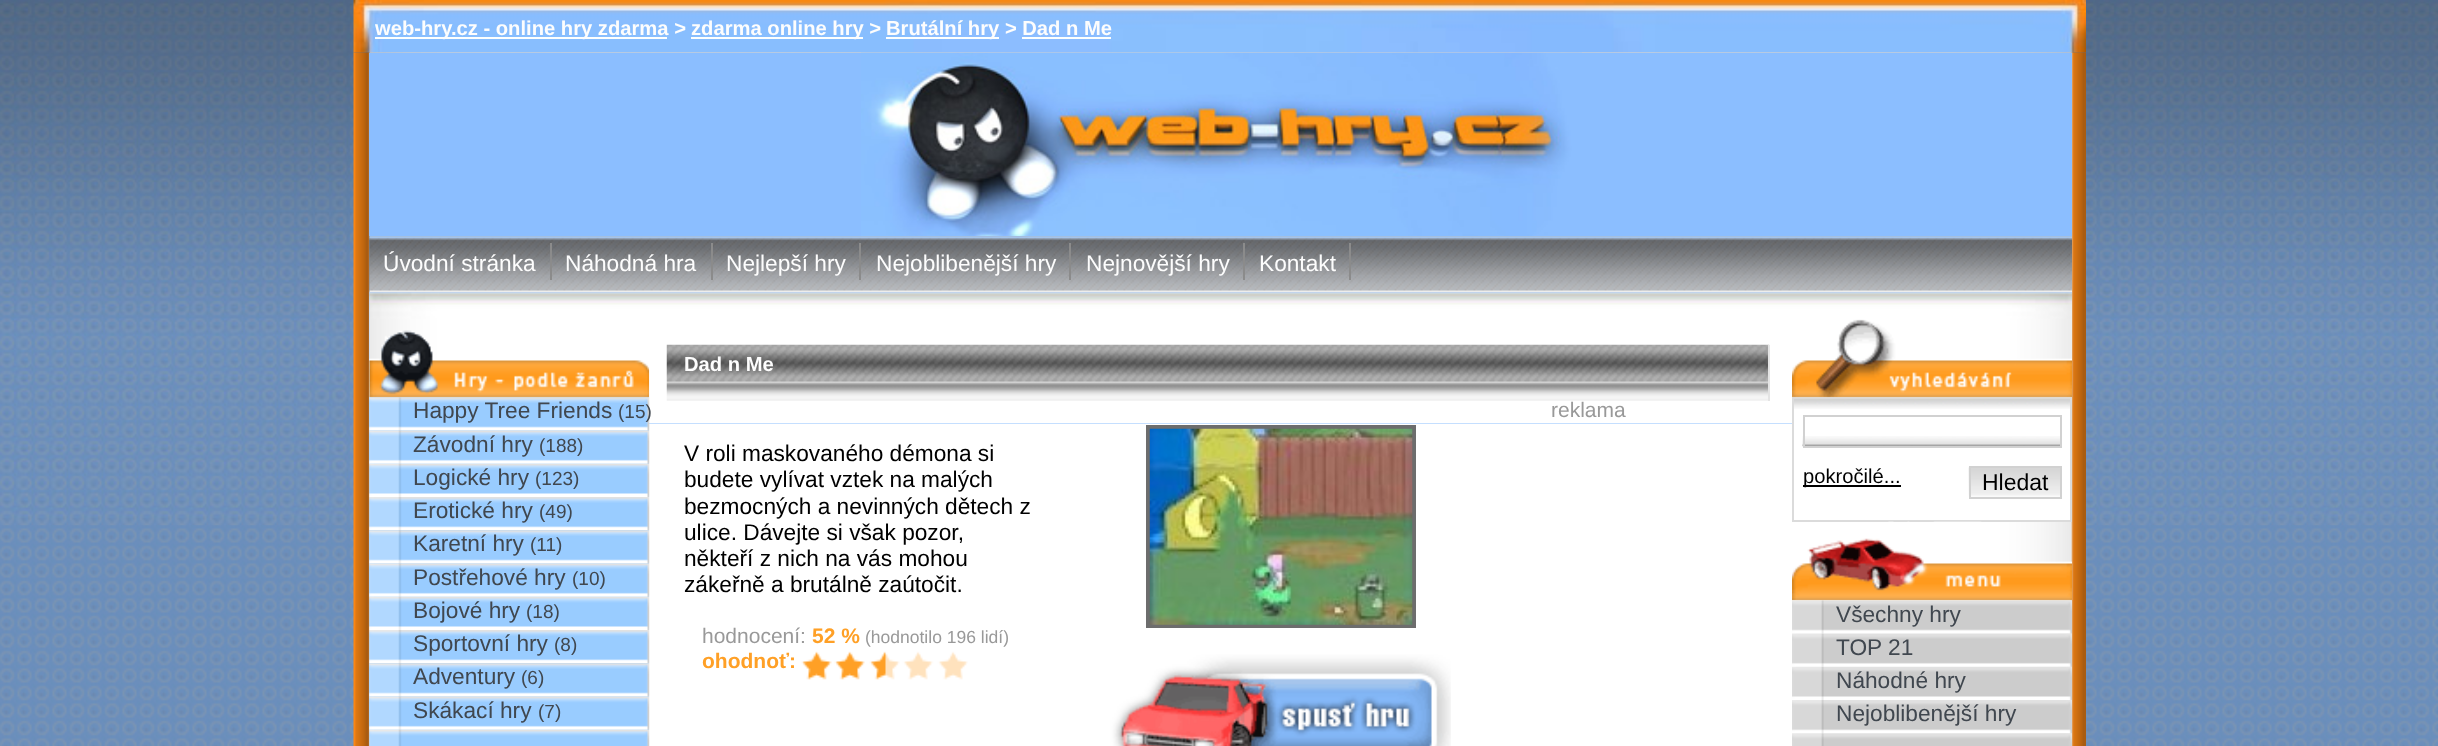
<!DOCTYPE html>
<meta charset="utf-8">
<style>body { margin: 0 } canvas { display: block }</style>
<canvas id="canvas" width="2438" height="746"></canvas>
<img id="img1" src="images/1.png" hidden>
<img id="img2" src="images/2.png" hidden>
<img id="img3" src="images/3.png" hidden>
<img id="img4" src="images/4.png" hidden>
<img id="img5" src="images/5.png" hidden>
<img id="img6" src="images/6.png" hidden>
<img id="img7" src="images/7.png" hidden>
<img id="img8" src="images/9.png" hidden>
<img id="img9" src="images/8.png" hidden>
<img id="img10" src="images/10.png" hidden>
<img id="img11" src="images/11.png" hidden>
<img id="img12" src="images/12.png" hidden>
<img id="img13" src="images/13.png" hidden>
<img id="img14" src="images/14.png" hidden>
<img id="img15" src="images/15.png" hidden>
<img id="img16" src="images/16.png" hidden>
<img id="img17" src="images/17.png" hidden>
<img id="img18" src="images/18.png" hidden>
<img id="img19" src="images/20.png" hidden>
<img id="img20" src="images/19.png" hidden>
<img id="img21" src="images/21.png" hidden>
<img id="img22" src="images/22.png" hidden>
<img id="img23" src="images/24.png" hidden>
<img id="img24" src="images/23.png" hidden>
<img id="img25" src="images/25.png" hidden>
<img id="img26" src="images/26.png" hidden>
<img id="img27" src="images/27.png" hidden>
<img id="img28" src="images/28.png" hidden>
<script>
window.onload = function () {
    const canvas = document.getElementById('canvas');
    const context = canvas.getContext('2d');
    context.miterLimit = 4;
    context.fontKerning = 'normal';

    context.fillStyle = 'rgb(255, 255, 255)';
    context.fillRect(0, 0, 2438, 746);
    context.drawImage(document.getElementById('img1'), 0, 525, 2438, 221);
    context.drawImage(document.getElementById('img2'), 0, 0, 2438, 525);
    context.drawImage(document.getElementById('img3'), 353, 0, 1733, 53);
    context.fillStyle = 'rgb(253, 255, 254)';
    context.fillRect(375, 37, 292, 2);
    context.fillRect(691, 37, 172, 2);
    context.fillRect(886, 37, 113, 2);
    context.drawImage(document.getElementById('img4'), 353, 52, 1733, 694);
    context.fillStyle = 'rgb(139, 190, 255)';
    context.fillRect(369, 53, 1703, 371);
    context.drawImage(document.getElementById('img5'), 369, 292, 1703, 132);
    context.drawImage(document.getElementById('img6'), 861, 52, 721, 184);
    context.fillStyle = 'rgb(134, 136, 140)';
    context.fillRect(369, 236, 1703, 56);
    context.drawImage(document.getElementById('img7'), 369, 236, 1703, 57);
    context.fillStyle = 'rgb(139, 139, 139)';
    context.fillRect(550, 243, 2, 37);
    context.fillRect(711, 243, 2, 37);
    context.fillRect(859, 243, 2, 37);
    context.fillRect(1069, 243, 2, 37);
    context.fillRect(1243, 243, 2, 37);
    context.fillRect(1349, 243, 2, 37);
    context.fillStyle = 'rgb(153, 204, 255)';
    context.fillRect(369, 397, 280, 67);
    context.drawImage(document.getElementById('img8'), 369, 397, 281, 34);
    context.drawImage(document.getElementById('img9'), 369, 330, 281, 68);
    context.drawImage(document.getElementById('img10'), 369, 430, 281, 34);
    context.drawImage(document.getElementById('img11'), 369, 463, 281, 34);
    context.drawImage(document.getElementById('img12'), 369, 497, 281, 34);
    context.fillRect(369, 530, 280, 67);
    context.drawImage(document.getElementById('img13'), 369, 530, 281, 34);
    context.drawImage(document.getElementById('img10'), 369, 563, 281, 34);
    context.drawImage(document.getElementById('img11'), 369, 596, 281, 34);
    context.drawImage(document.getElementById('img12'), 369, 630, 281, 34);
    context.fillRect(369, 663, 280, 67);
    context.drawImage(document.getElementById('img13'), 369, 663, 281, 34);
    context.drawImage(document.getElementById('img10'), 369, 696, 281, 34);
    context.drawImage(document.getElementById('img14'), 369, 729, 281, 17);
    context.drawImage(document.getElementById('img15'), 666, 344, 1104, 57);
    context.fillStyle = 'rgb(228, 228, 228)';
    context.fillRect(1768, 345, 2, 56);
    context.drawImage(document.getElementById('img16'), 801, 651, 167, 29);
    context.strokeStyle = 'rgb(109, 109, 109)';
    context.lineWidth = 4;
    context.strokeRect(1148, 427, 266, 199);
    context.drawImage(document.getElementById('img17'), 1149, 428, 264, 197);
    context.drawImage(document.getElementById('img18'), 1104, 654, 347, 92);
    context.fillStyle = 'rgb(255, 255, 255)';
    context.fillRect(1794, 409, 276, 111);
    context.drawImage(document.getElementById('img19'), 1794, 399, 276, 10);
    context.strokeStyle = 'rgb(219, 219, 219)';
    context.lineWidth = 2;
    context.strokeRect(1793, 398, 278, 123);
    context.drawImage(document.getElementById('img20'), 1792, 319, 280, 79);
    context.drawImage(document.getElementById('img21'), 1802, 436, 258, 11);
    context.strokeStyle = 'rgb(209, 209, 209)';
    context.strokeRect(1804, 416, 257, 31);
    context.fillStyle = 'rgb(0, 0, 0)';
    context.fillRect(1803, 485, 98, 2);
    context.drawImage(document.getElementById('img22'), 1968, 466, 92, 31);
    context.strokeRect(1970, 467, 91, 31);
    context.drawImage(document.getElementById('img23'), 1792, 600, 280, 34);
    context.drawImage(document.getElementById('img24'), 1792, 521, 280, 80);
    context.drawImage(document.getElementById('img25'), 1792, 633, 280, 34);
    context.drawImage(document.getElementById('img26'), 1792, 666, 280, 34);
    context.drawImage(document.getElementById('img27'), 1792, 700, 280, 34);
    context.drawImage(document.getElementById('img28'), 1792, 733, 280, 13);
    context.font = 'bold 20.2px Liberation Sans';
    context.fillStyle = 'rgb(253, 253, 253)';
    context.fillText('web-hry.cz - online hry zdarma >', 375, 35);
    context.fillText('zdarma online hry >', 691, 35);
    context.fillText('Brutální hry > Dad n Me', 886, 35);
    context.fillStyle = 'rgb(253, 255, 254)';
    context.fillRect(1022, 37, 89, 2);
    context.font = '22.7px Liberation Sans';
    context.fillStyle = 'rgb(253, 253, 253)';
    context.fillText('Úvodní stránka', 383, 271);
    context.fillText('Náhodná hra', 565, 271);
    context.fillText('Nejlepší hry', 726, 271);
    context.fillText('Nejoblibenější hry', 876, 271);
    context.fillText('Nejnovější hry', 1086, 271);
    context.fillText('Kontakt', 1259, 271);
    context.fillStyle = 'rgb(64, 71, 79)';
    context.fillText('Happy Tree Friends', 413, 418);
    context.font = '19px Liberation Sans';
    context.fillText('(15)', 618, 418);
    context.font = '22.7px Liberation Sans';
    context.fillText('Závodní hry', 413, 452);
    context.font = '19px Liberation Sans';
    context.fillText('(188)', 539, 452);
    context.font = '22.7px Liberation Sans';
    context.fillText('Logické hry', 413, 485);
    context.font = '19px Liberation Sans';
    context.fillText('(123)', 535, 485);
    context.font = '22.7px Liberation Sans';
    context.fillText('Erotické hry', 413, 518);
    context.font = '19px Liberation Sans';
    context.fillText('(49)', 539, 518);
    context.font = '22.7px Liberation Sans';
    context.fillText('Karetní hry', 413, 551);
    context.font = '19px Liberation Sans';
    context.fillText('(11)', 530, 551);
    context.font = '22.7px Liberation Sans';
    context.fillText('Postřehové hry', 413, 585);
    context.font = '19px Liberation Sans';
    context.fillText('(10)', 572, 585);
    context.font = '22.7px Liberation Sans';
    context.fillText('Bojové hry', 413, 618);
    context.font = '19px Liberation Sans';
    context.fillText('(18)', 526, 618);
    context.font = '22.7px Liberation Sans';
    context.fillText('Sportovní hry', 413, 651);
    context.font = '19px Liberation Sans';
    context.fillText('(8)', 554, 651);
    context.font = '22.7px Liberation Sans';
    context.fillText('Adventury', 413, 684);
    context.font = '19px Liberation Sans';
    context.fillText('(6)', 521, 684);
    context.font = '22.7px Liberation Sans';
    context.fillText('Skákací hry', 413, 718);
    context.font = '19px Liberation Sans';
    context.fillText('(7)', 538, 718);
    context.font = 'bold 20.2px Liberation Sans';
    context.fillStyle = 'rgb(253, 253, 253)';
    context.fillText('Dad n Me', 684, 371);
    context.font = '21px Liberation Sans';
    context.fillStyle = 'rgb(153, 153, 153)';
    context.fillText('reklama', 1551, 417);
    context.font = '22.7px Liberation Sans';
    context.fillStyle = 'rgb(0, 0, 0)';
    context.fillText('V roli maskovaného démona si', 684, 461);
    context.fillText('budete vylívat vztek na malých', 684, 487);
    context.fillText('bezmocných a nevinných dětech z', 684, 514);
    context.fillText('ulice. Dávejte si však pozor,', 684, 540);
    context.fillText('někteří z nich na vás mohou', 684, 566);
    context.fillText('zákeřně a brutálně zaútočit.', 684, 592);
    context.font = '21px Liberation Sans';
    context.fillStyle = 'rgb(153, 153, 153)';
    context.fillText('hodnocení:', 702, 643);
    context.font = 'bold 21px Liberation Sans';
    context.fillStyle = 'rgb(255, 160, 38)';
    context.fillText('52 %', 812, 643);
    context.font = '17.5px Liberation Sans';
    context.fillStyle = 'rgb(153, 153, 153)';
    context.fillText('(hodnotilo 196 lidí)', 865, 643);
    context.font = 'bold 21px Liberation Sans';
    context.fillStyle = 'rgb(255, 160, 38)';
    context.fillText('ohodnoť:', 702, 668);
    context.font = '20.2px Liberation Sans';
    context.fillStyle = 'rgb(0, 0, 0)';
    context.fillText('pokročilé...', 1803, 483);
    context.font = '23px Liberation Sans';
    context.fillText('Hledat', 1982, 490);
    context.font = '22.7px Liberation Sans';
    context.fillStyle = 'rgb(64, 71, 79)';
    context.fillText('Všechny hry', 1836, 622);
    context.fillText('TOP 21', 1836, 655);
    context.fillText('Náhodné hry', 1836, 688);
    context.fillText('Nejoblibenější hry', 1836, 721);
};
</script>
